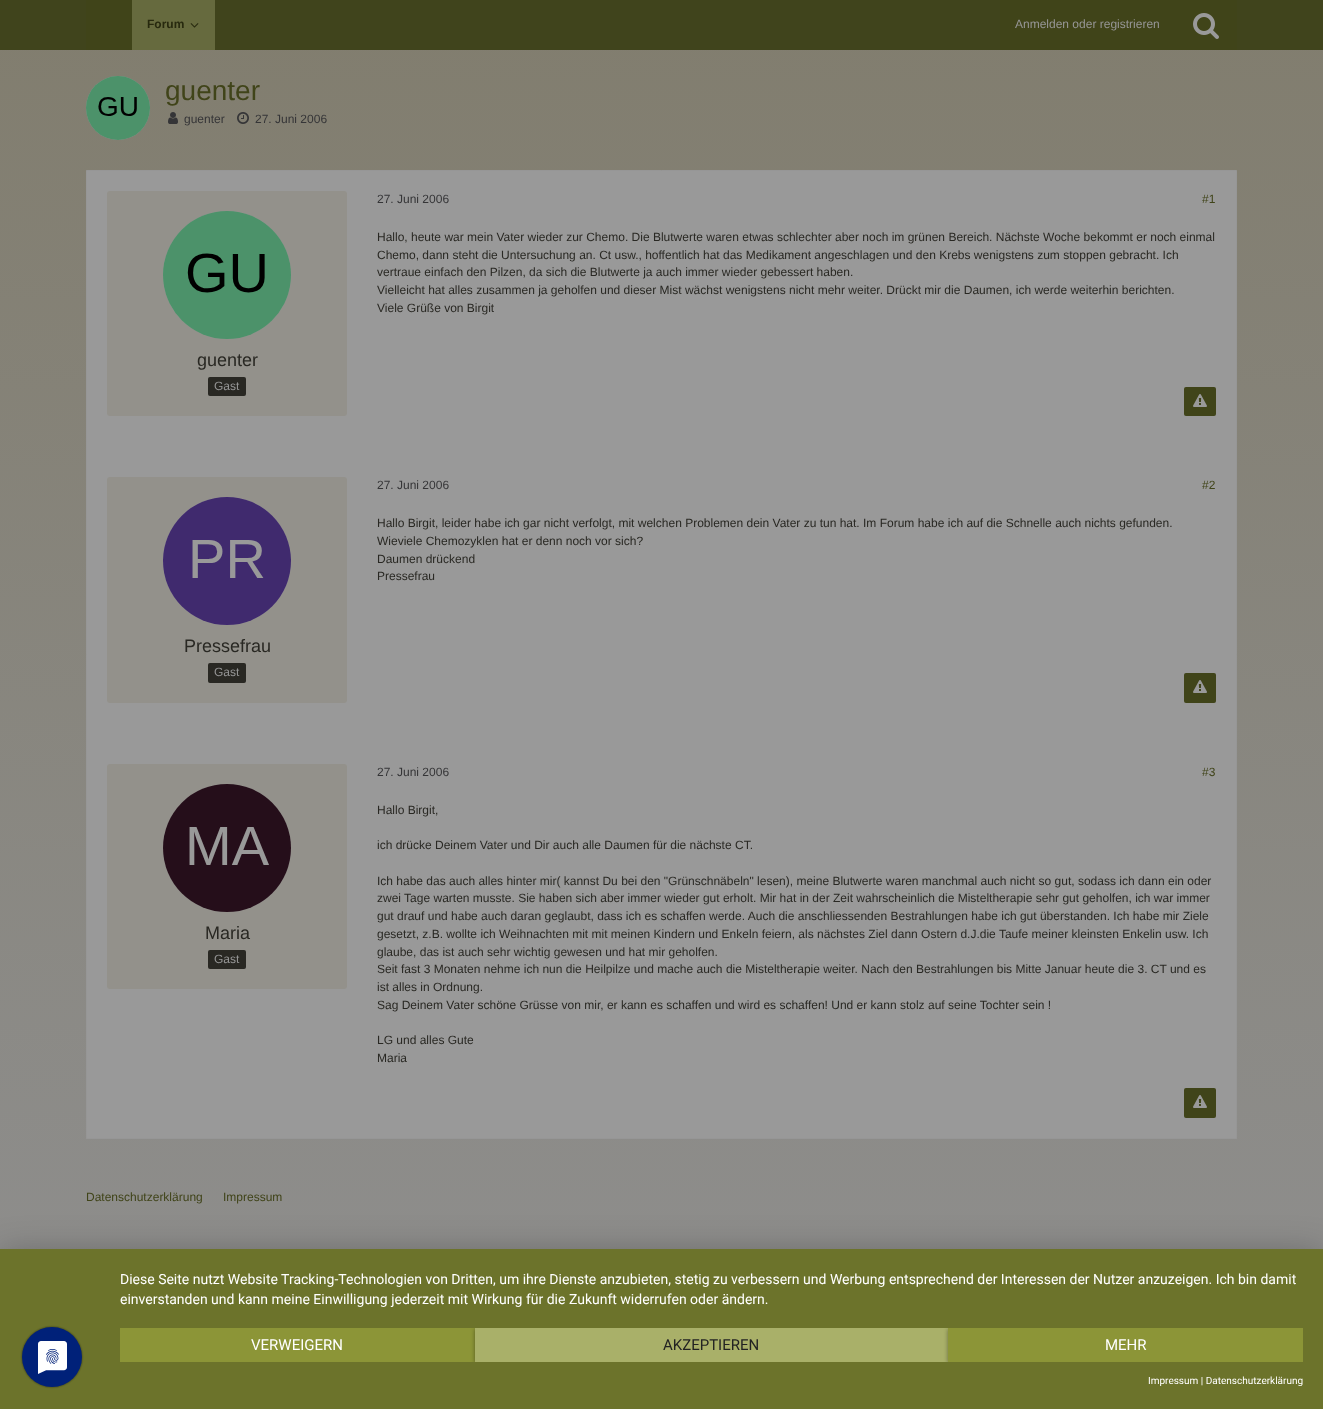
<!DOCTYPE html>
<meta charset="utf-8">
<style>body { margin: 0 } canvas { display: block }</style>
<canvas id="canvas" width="1323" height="1409"></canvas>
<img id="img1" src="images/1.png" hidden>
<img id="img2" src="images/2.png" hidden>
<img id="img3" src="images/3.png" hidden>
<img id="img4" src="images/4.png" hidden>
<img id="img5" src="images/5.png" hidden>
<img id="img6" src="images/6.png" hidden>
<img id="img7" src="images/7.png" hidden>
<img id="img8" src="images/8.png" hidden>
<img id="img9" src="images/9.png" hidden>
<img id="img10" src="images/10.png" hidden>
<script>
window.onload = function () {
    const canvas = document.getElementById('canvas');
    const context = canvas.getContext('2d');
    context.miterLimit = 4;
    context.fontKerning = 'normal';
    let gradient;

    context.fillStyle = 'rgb(255, 255, 255)';
    context.fillRect(0, 0, 1323, 1409);
    gradient = context.createLinearGradient(661, 0, 662, 1409);
    gradient.addColorStop(0, 'rgb(129, 125, 110)');
    gradient.addColorStop(1, 'rgb(143, 143, 143)');
    context.fillStyle = gradient;
    context.fillRect(0, 50, 1323, 1199);
    context.fillStyle = 'rgb(64, 68, 28)';
    context.fillRect(0, 0, 1323, 50);
    context.fillStyle = 'rgb(64, 68, 25)';
    context.fillRect(86, 0, 46, 50);
    context.fillStyle = 'rgb(102, 106, 62)';
    context.fillRect(132, 0, 83, 50);
    context.drawImage(document.getElementById('img1'), 190, 23, 9, 5);
    context.fillStyle = 'rgb(64, 68, 25)';
    context.fillRect(1000, 0, 237, 50);
    context.drawImage(document.getElementById('img2'), 1193, 13, 26, 26);
    context.fillStyle = 'rgb(153, 153, 153)';
    context.beginPath();
    context.arc(118, 108, 32, 0, 2 * Math.PI);
    context.fill();
    context.drawImage(document.getElementById('img3'), 86, 76, 64, 64);
    context.drawImage(document.getElementById('img4'), 168, 112, 10, 12);
    context.drawImage(document.getElementById('img5'), 237, 112, 12, 12);
    context.beginPath();
    context.rect(86.5, 170.5, 1150, 968);
    context.fill();
    context.strokeStyle = 'rgb(150, 150, 150)';
    context.stroke();
    context.fillStyle = 'rgb(64, 68, 25)';
    context.beginPath();
    context.roundRect(1184, 387, 32, 29, 2);
    context.fill();
    context.drawImage(document.getElementById('img6'), 1193, 394, 14, 13);
    context.fillStyle = 'rgb(147, 145, 139)';
    context.beginPath();
    context.roundRect(107, 191, 240, 225, 3);
    context.fill();
    context.fillStyle = 'rgb(153, 153, 153)';
    context.beginPath();
    context.arc(227, 275, 64, 0, 2 * Math.PI);
    context.fill();
    context.drawImage(document.getElementById('img7'), 163, 211, 128, 128);
    context.fillStyle = 'rgb(41, 40, 35)';
    context.beginPath();
    context.roundRect(208, 377, 38, 19, 2);
    context.fill();
    context.fillStyle = 'rgb(64, 68, 25)';
    context.beginPath();
    context.roundRect(1184, 673, 32, 30, 2);
    context.fill();
    context.drawImage(document.getElementById('img6'), 1193, 680, 14, 13);
    context.fillStyle = 'rgb(147, 145, 139)';
    context.beginPath();
    context.roundRect(107, 477, 240, 226, 3);
    context.fill();
    context.fillStyle = 'rgb(153, 153, 153)';
    context.beginPath();
    context.arc(227, 561, 64, 0, 2 * Math.PI);
    context.fill();
    context.drawImage(document.getElementById('img8'), 163, 497, 128, 128);
    context.fillStyle = 'rgb(41, 40, 35)';
    context.beginPath();
    context.roundRect(208, 663, 38, 20, 2);
    context.fill();
    context.fillStyle = 'rgb(147, 145, 139)';
    context.beginPath();
    context.roundRect(107, 764, 240, 225, 3);
    context.fill();
    context.fillStyle = 'rgb(153, 153, 153)';
    context.beginPath();
    context.arc(227, 848, 64, 0, 2 * Math.PI);
    context.fill();
    context.drawImage(document.getElementById('img9'), 163, 784, 128, 128);
    context.fillStyle = 'rgb(41, 40, 35)';
    context.beginPath();
    context.roundRect(208, 950, 38, 19, 2);
    context.fill();
    context.fillStyle = 'rgb(64, 68, 25)';
    context.beginPath();
    context.roundRect(1184, 1088, 32, 30, 2);
    context.fill();
    context.drawImage(document.getElementById('img6'), 1193, 1095, 14, 13);
    context.fillStyle = 'rgba(0, 0, 0, 0.3)';
    context.filter = 'blur(18px)';
    context.beginPath();
    context.rect(0, 1255, 1323, 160);
    context.fill();
    context.filter = 'none';
    context.fillStyle = 'rgb(108, 115, 43)';
    context.fillRect(0, 1249, 1323, 160);
    context.drawImage(document.getElementById('img10'), 20, 1325, 64, 64);
    context.fillStyle = 'rgb(140, 149, 55)';
    context.fillRect(120, 1328, 355, 34);
    context.save();
    context.beginPath();
    context.rect(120, 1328, 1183, 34);
    context.clip();
    context.fillStyle = 'rgba(0, 0, 0, 0.4)';
    context.filter = 'blur(2px)';
    context.beginPath();
    context.rect(475, 1329, 473, 34);
    context.fill();
    context.filter = 'none';
    context.restore();
    context.fillStyle = 'rgb(169, 176, 105)';
    context.fillRect(475, 1328, 473, 34);
    context.save();
    context.beginPath();
    context.rect(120, 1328, 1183, 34);
    context.clip();
    context.fillStyle = 'rgba(0, 0, 0, 0.4)';
    context.filter = 'blur(2px)';
    context.beginPath();
    context.rect(948, 1329, 355, 34);
    context.fill();
    context.filter = 'none';
    context.restore();
    context.fillStyle = 'rgb(140, 149, 55)';
    context.fillRect(948, 1328, 355, 34);
    context.font = 'bold 12px Liberation Sans';
    context.fillStyle = 'rgb(39, 41, 14)';
    context.fillText('Forum', 147, 28);
    context.font = '12px Liberation Sans';
    context.fillStyle = 'rgb(150, 150, 150)';
    context.fillText('Anmelden oder registrieren', 1015, 28);
    context.font = '28px Liberation Sans';
    context.fillStyle = 'rgb(64, 68, 25)';
    context.fillText('guenter', 165, 100);
    context.font = '12px Liberation Sans';
    context.fillStyle = 'rgb(53, 53, 55)';
    context.fillText('guenter', 184, 123);
    context.fillText('27. Juni 2006', 255, 123);
    context.fillText('27. Juni 2006', 377, 203);
    context.fillStyle = 'rgb(64, 68, 25)';
    context.fillText('#1', 1202, 203);
    context.fillStyle = 'rgb(41, 40, 35)';
    context.fillText('Hallo, heute war mein Vater wieder zur Chemo. Die Blutwerte waren etwas schlechter aber noch im grünen Bereich. Nächste Woche bekommt er noch einmal', 377, 241);
    context.fillText('Chemo, dann steht die Untersuchung an. Ct usw., hoffentlich hat das Medikament angeschlagen und den Krebs wenigstens zum stoppen gebracht. Ich', 377, 259);
    context.fillText('vertraue einfach den Pilzen, da sich die Blutwerte ja auch immer wieder gebessert haben.', 377, 276);
    context.fillText('Vielleicht hat alles zusammen ja geholfen und dieser Mist wächst wenigstens nicht mehr weiter. Drückt mir die Daumen, ich werde weiterhin berichten.', 377, 294);
    context.fillText('Viele Grüße von Birgit', 377, 312);
    context.font = '18px Liberation Sans';
    context.fillText('guenter', 197, 366);
    context.font = '12px Liberation Sans';
    context.fillStyle = 'rgb(150, 150, 150)';
    context.fillText('Gast', 214, 390);
    context.fillStyle = 'rgb(53, 53, 55)';
    context.fillText('27. Juni 2006', 377, 489);
    context.fillStyle = 'rgb(64, 68, 25)';
    context.fillText('#2', 1202, 489);
    context.fillStyle = 'rgb(41, 40, 35)';
    context.fillText('Hallo Birgit, leider habe ich gar nicht verfolgt, mit welchen Problemen dein Vater zu tun hat. Im Forum habe ich auf die Schnelle auch nichts gefunden.', 377, 527);
    context.fillText('Wieviele Chemozyklen hat er denn noch vor sich?', 377, 545);
    context.fillText('Daumen drückend', 377, 563);
    context.fillText('Pressefrau', 377, 580);
    context.font = '18px Liberation Sans';
    context.fillText('Pressefrau', 184, 652);
    context.font = '12px Liberation Sans';
    context.fillStyle = 'rgb(150, 150, 150)';
    context.fillText('Gast', 214, 676);
    context.font = '18px Liberation Sans';
    context.fillStyle = 'rgb(41, 40, 35)';
    context.fillText('Maria', 205, 939);
    context.font = '12px Liberation Sans';
    context.fillStyle = 'rgb(150, 150, 150)';
    context.fillText('Gast', 214, 963);
    context.fillStyle = 'rgb(53, 53, 55)';
    context.fillText('27. Juni 2006', 377, 776);
    context.fillStyle = 'rgb(64, 68, 25)';
    context.fillText('#3', 1202, 776);
    context.fillStyle = 'rgb(41, 40, 35)';
    context.fillText('Hallo Birgit,', 377, 814);
    context.fillText('ich drücke Deinem Vater und Dir auch alle Daumen für die nächste CT.', 377, 849);
    context.fillText('Ich habe das auch alles hinter mir( kannst Du bei den "Grünschnäbeln" lesen), meine Blutwerte waren manchmal auch nicht so gut, sodass ich dann ein oder', 377, 885);
    context.fillText('zwei Tage warten musste. Sie haben sich aber immer wieder gut erholt. Mir hat in der Zeit wahrscheinlich die Misteltherapie sehr gut geholfen, ich war immer', 377, 902);
    context.fillText('gut drauf und habe auch daran geglaubt, dass ich es schaffen werde. Auch die anschliessenden Bestrahlungen habe ich gut überstanden. Ich habe mir Ziele', 377, 920);
    context.fillText('gesetzt, z.B. wollte ich Weihnachten mit mit meinen Kindern und Enkeln feiern, als nächstes Ziel dann Ostern d.J.die Taufe meiner kleinsten Enkelin usw. Ich', 377, 938);
    context.fillText('glaube, das ist auch sehr wichtig gewesen und hat mir geholfen.', 377, 956);
    context.fillText('Seit fast 3 Monaten nehme ich nun die Heilpilze und mache auch die Misteltherapie weiter. Nach den Bestrahlungen bis Mitte Januar heute die 3. CT und es', 377, 973);
    context.fillText('ist alles in Ordnung.', 377, 991);
    context.fillText('Sag Deinem Vater schöne Grüsse von mir, er kann es schaffen und wird es schaffen! Und er kann stolz auf seine Tochter sein !', 377, 1009);
    context.fillText('LG und alles Gute', 377, 1044);
    context.fillText('Maria', 377, 1062);
    context.fillStyle = 'rgb(64, 68, 25)';
    context.fillText('Datenschutzerklärung', 86, 1201);
    context.fillText('Impressum', 223, 1201);
    context.font = '14px Roboto';
    context.fillStyle = 'rgb(255, 255, 255)';
    context.fillText('Diese Seite nutzt Website Tracking-Technologien von Dritten, um ihre Dienste anzubieten, stetig zu verbessern und Werbung entsprechend der Interessen der Nutzer anzuzeigen. Ich bin damit', 120, 1284);
    context.fillText('einverstanden und kann meine Einwilligung jederzeit mit Wirkung für die Zukunft widerrufen oder ändern.', 120, 1304);
    context.font = '15px Roboto';
    context.fillText('VERWEIGERN', 251, 1350);
    context.fillStyle = 'rgb(34, 34, 34)';
    context.fillText('AKZEPTIEREN', 663, 1350);
    context.fillStyle = 'rgb(255, 255, 255)';
    context.fillText('MEHR', 1105, 1350);
    context.font = '10px Roboto';
    context.fillText('Impressum | Datenschutzerklärung', 1148, 1384);
};
</script>
